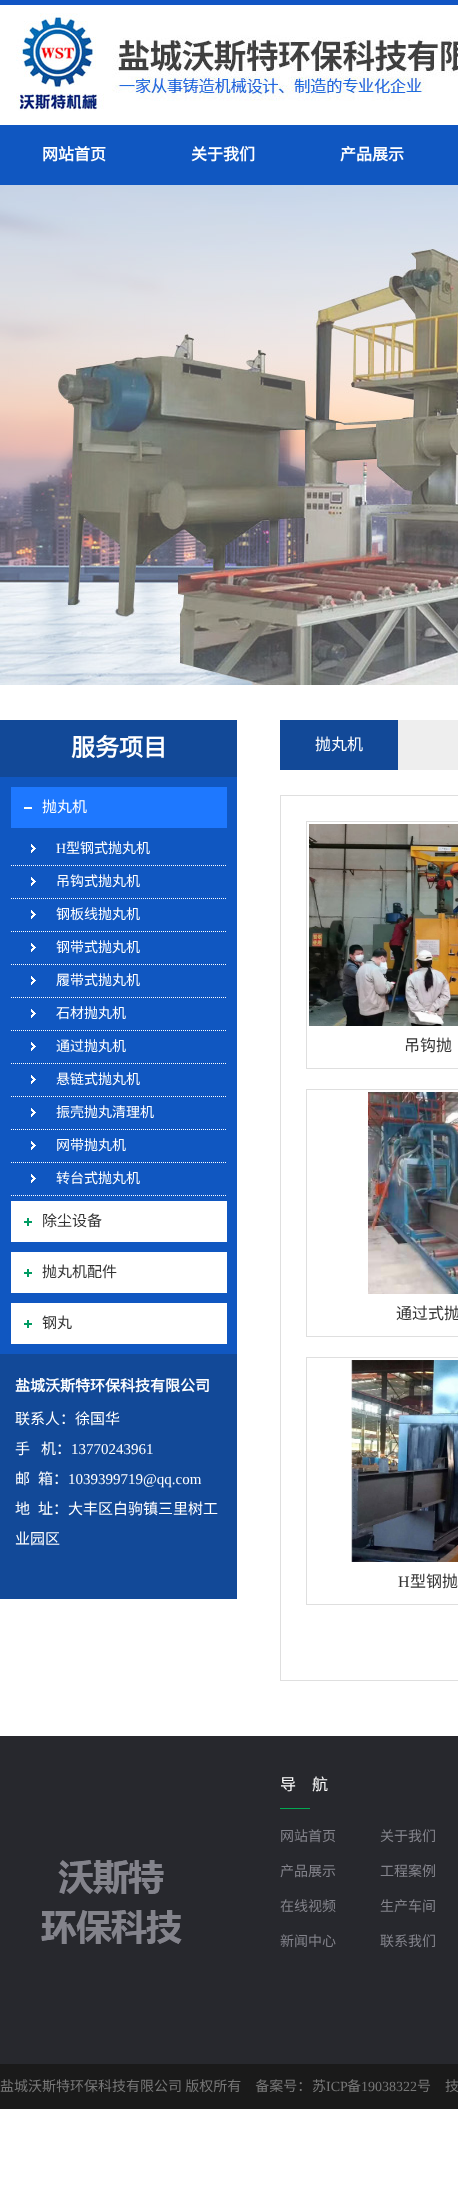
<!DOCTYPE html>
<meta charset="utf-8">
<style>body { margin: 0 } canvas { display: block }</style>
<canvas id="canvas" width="458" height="2206"></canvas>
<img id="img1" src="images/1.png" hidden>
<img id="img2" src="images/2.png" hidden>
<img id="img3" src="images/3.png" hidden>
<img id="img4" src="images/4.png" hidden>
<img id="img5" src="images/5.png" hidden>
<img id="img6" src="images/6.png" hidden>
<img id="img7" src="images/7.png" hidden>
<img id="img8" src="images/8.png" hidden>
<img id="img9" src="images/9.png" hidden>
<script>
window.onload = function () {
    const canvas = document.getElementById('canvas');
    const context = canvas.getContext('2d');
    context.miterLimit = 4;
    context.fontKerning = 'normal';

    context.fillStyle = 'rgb(255, 255, 255)';
    context.fillRect(0, 0, 458, 2206);
    context.drawImage(document.getElementById('img1'), 16, 13, 442, 98);
    context.fillStyle = 'rgb(17, 85, 196)';
    context.fillRect(0, 0, 458, 5);
    context.fillStyle = 'rgb(16, 87, 193)';
    context.fillRect(0, 125, 458, 60);
    context.drawImage(document.getElementById('img2'), 0, 185, 458, 500);
    context.fillStyle = 'rgb(18, 73, 152)';
    context.fillRect(0, 720, 237, 57);
    context.fillStyle = 'rgb(16, 87, 193)';
    context.fillRect(0, 777, 237, 577);
    context.fillStyle = 'rgb(30, 120, 255)';
    context.fillRect(11, 787, 216, 41);
    context.drawImage(document.getElementById('img3'), 24, 807, 8, 2);
    context.drawImage(document.getElementById('img4'), 31, 844, 5, 9);
    context.beginPath();
    context.moveTo(11, 865.5);
    context.lineTo(227, 865.5);
    context.strokeStyle = 'rgb(255, 255, 255)';
    context.setLineDash([1, 1]);
    context.stroke();
    context.drawImage(document.getElementById('img4'), 31, 877, 5, 9);
    context.beginPath();
    context.moveTo(11, 898.5);
    context.lineTo(227, 898.5);
    context.stroke();
    context.drawImage(document.getElementById('img4'), 31, 910, 5, 9);
    context.beginPath();
    context.moveTo(11, 931.5);
    context.lineTo(227, 931.5);
    context.stroke();
    context.drawImage(document.getElementById('img4'), 31, 943, 5, 9);
    context.beginPath();
    context.moveTo(11, 964.5);
    context.lineTo(227, 964.5);
    context.stroke();
    context.drawImage(document.getElementById('img4'), 31, 976, 5, 9);
    context.beginPath();
    context.moveTo(11, 997.5);
    context.lineTo(227, 997.5);
    context.stroke();
    context.drawImage(document.getElementById('img4'), 31, 1009, 5, 9);
    context.beginPath();
    context.moveTo(11, 1030.5);
    context.lineTo(227, 1030.5);
    context.stroke();
    context.drawImage(document.getElementById('img4'), 31, 1042, 5, 9);
    context.beginPath();
    context.moveTo(11, 1063.5);
    context.lineTo(227, 1063.5);
    context.stroke();
    context.drawImage(document.getElementById('img4'), 31, 1075, 5, 9);
    context.beginPath();
    context.moveTo(11, 1096.5);
    context.lineTo(227, 1096.5);
    context.stroke();
    context.drawImage(document.getElementById('img4'), 31, 1108, 5, 9);
    context.beginPath();
    context.moveTo(11, 1129.5);
    context.lineTo(227, 1129.5);
    context.stroke();
    context.drawImage(document.getElementById('img4'), 31, 1141, 5, 9);
    context.beginPath();
    context.moveTo(11, 1162.5);
    context.lineTo(227, 1162.5);
    context.stroke();
    context.drawImage(document.getElementById('img4'), 31, 1174, 5, 9);
    context.beginPath();
    context.moveTo(11, 1195.5);
    context.lineTo(227, 1195.5);
    context.stroke();
    context.fillStyle = 'rgb(255, 255, 255)';
    context.fillRect(11, 1201, 216, 41);
    context.drawImage(document.getElementById('img5'), 24, 1218, 8, 8);
    context.fillRect(11, 1252, 216, 41);
    context.drawImage(document.getElementById('img5'), 24, 1269, 8, 8);
    context.fillRect(11, 1303, 216, 41);
    context.drawImage(document.getElementById('img5'), 24, 1320, 8, 8);
    context.fillStyle = 'rgb(18, 73, 152)';
    context.fillRect(0, 1354, 237, 245);
    context.fillStyle = 'rgb(238, 238, 238)';
    context.fillRect(398, 720, 60, 50);
    context.fillStyle = 'rgb(18, 73, 152)';
    context.fillRect(280, 720, 118, 50);
    context.strokeStyle = 'rgb(223, 223, 223)';
    context.setLineDash([]);
    context.strokeRect(280.5, 795.5, 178, 885);
    context.strokeRect(306.5, 821.5, 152, 247);
    context.drawImage(document.getElementById('img6'), 309, 824, 149, 202);
    context.strokeRect(306.5, 1089.5, 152, 247);
    context.drawImage(document.getElementById('img7'), 368, 1092, 90, 202);
    context.strokeRect(306.5, 1357.5, 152, 247);
    context.drawImage(document.getElementById('img8'), 351, 1360, 107, 202);
    context.fillStyle = 'rgb(39, 40, 45)';
    context.fillRect(0, 1736, 458, 328);
    context.drawImage(document.getElementById('img9'), 41, 1860, 141, 84);
    context.fillStyle = 'rgb(2, 168, 82)';
    context.fillRect(280, 1808, 30, 1);
    context.fillStyle = 'rgb(26, 26, 26)';
    context.fillRect(0, 2064, 458, 45);
    context.font = 'bold 16px Noto Sans CJK SC';
    context.fillStyle = 'rgb(255, 255, 255)';
    context.fillText('网站首页', 42, 160);
    context.fillText('关于我们', 191, 160);
    context.fillText('产品展示', 340, 160);
    context.font = 'bold 24px Noto Sans CJK SC';
    context.fillText('服务项目', 71, 756);
    context.font = '15px Noto Sans CJK SC';
    context.fillText('抛丸机', 42, 812);
    context.font = '14px Liberation Serif';
    context.fillText('H', 56, 853);
    context.font = '14px Noto Sans CJK SC';
    context.fillText('型钢式抛丸机', 66, 853);
    context.fillText('吊钩式抛丸机', 56, 886);
    context.fillText('钢板线抛丸机', 56, 919);
    context.fillText('钢带式抛丸机', 56, 952);
    context.fillText('履带式抛丸机', 56, 985);
    context.fillText('石材抛丸机', 56, 1018);
    context.fillText('通过抛丸机', 56, 1051);
    context.fillText('悬链式抛丸机', 56, 1084);
    context.fillText('振壳抛丸清理机', 56, 1117);
    context.fillText('网带抛丸机', 56, 1150);
    context.fillText('转台式抛丸机', 56, 1183);
    context.font = '15px Noto Sans CJK SC';
    context.fillStyle = 'rgb(51, 51, 51)';
    context.fillText('除尘设备', 42, 1226);
    context.fillText('抛丸机配件', 42, 1277);
    context.fillText('钢丸', 42, 1328);
    context.font = 'bold 15px Noto Sans CJK SC';
    context.fillStyle = 'rgb(255, 255, 255)';
    context.fillText('盐城沃斯特环保科技有限公司', 15, 1391);
    context.font = '15px Noto Sans CJK SC';
    context.fillText('联系人：徐国华', 15, 1424);
    context.fillText('手', 15, 1454);
    context.fillText('机：', 41, 1454);
    context.font = '15px Liberation Serif';
    context.fillText('13770243961', 71, 1454);
    context.font = '15px Noto Sans CJK SC';
    context.fillText('邮', 15, 1484);
    context.fillText('箱：', 38, 1484);
    context.font = '15px Liberation Serif';
    context.fillText('1039399719@qq.com', 68, 1484);
    context.font = '15px Noto Sans CJK SC';
    context.fillText('地', 15, 1514);
    context.fillText('址：大丰区白驹镇三里树工', 38, 1514);
    context.fillText('业园区', 15, 1544);
    context.font = '16px Noto Sans CJK SC';
    context.fillText('抛丸机', 315, 750);
    context.fillStyle = 'rgb(51, 51, 51)';
    context.fillText('吊钩抛', 404, 1051);
    context.fillText('通过式抛', 396, 1319);
    context.font = '16px Liberation Serif';
    context.fillText('H', 398, 1587);
    context.font = '16px Noto Sans CJK SC';
    context.fillText('型钢抛', 410, 1587);
    context.fillStyle = 'rgb(255, 255, 255)';
    context.fillText('导　航', 280, 1790);
    context.font = '14px Noto Sans CJK SC';
    context.fillStyle = 'rgb(131, 131, 139)';
    context.fillText('网站首页', 280, 1841);
    context.fillText('关于我们', 380, 1841);
    context.fillText('产品展示', 280, 1876);
    context.fillText('工程案例', 380, 1876);
    context.fillText('在线视频', 280, 1911);
    context.fillText('生产车间', 380, 1911);
    context.fillText('新闻中心', 280, 1946);
    context.fillText('联系我们', 380, 1946);
    context.fillStyle = 'rgb(119, 119, 119)';
    context.fillText('盐城沃斯特环保科技有限公司 版权所有　备案号：', 0, 2091);
    context.fillText('苏', 312, 2091);
    context.font = '14px Liberation Serif';
    context.fillText('ICP', 326, 2091);
    context.font = '14px Noto Sans CJK SC';
    context.fillText('备', 347, 2091);
    context.font = '14px Liberation Serif';
    context.fillText('19038322', 361, 2091);
    context.font = '14px Noto Sans CJK SC';
    context.fillText('号', 417, 2091);
    context.fillText('技', 445, 2091);
};
</script>
